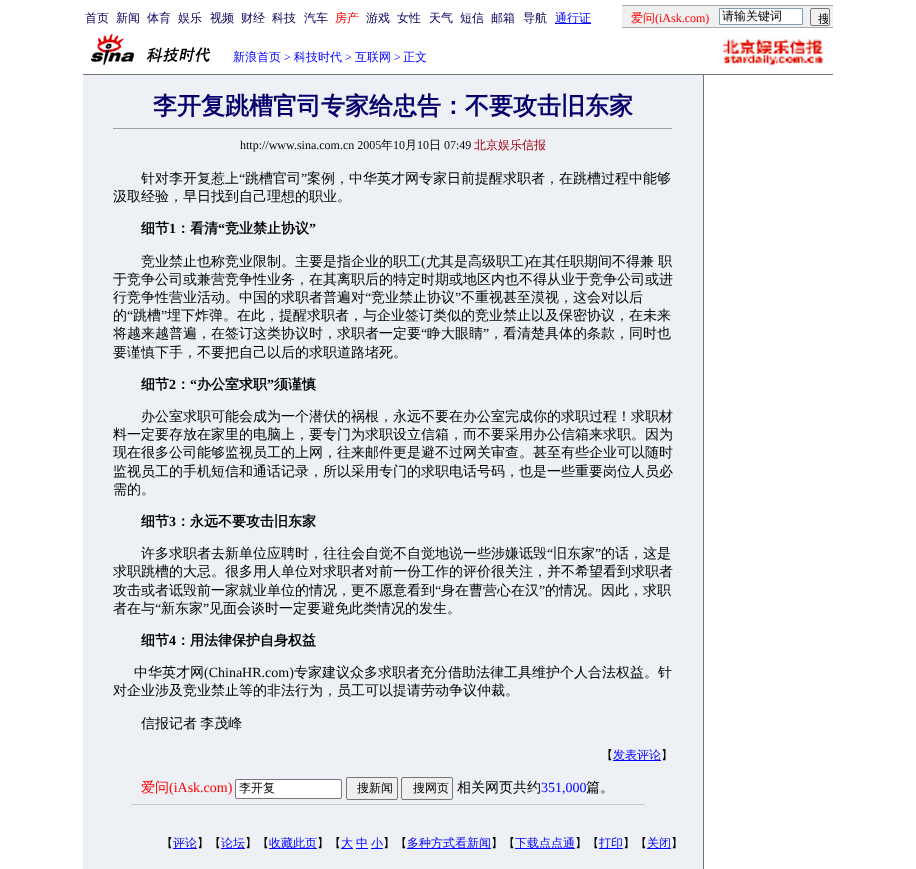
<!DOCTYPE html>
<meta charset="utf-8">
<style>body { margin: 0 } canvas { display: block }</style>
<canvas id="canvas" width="916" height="869"></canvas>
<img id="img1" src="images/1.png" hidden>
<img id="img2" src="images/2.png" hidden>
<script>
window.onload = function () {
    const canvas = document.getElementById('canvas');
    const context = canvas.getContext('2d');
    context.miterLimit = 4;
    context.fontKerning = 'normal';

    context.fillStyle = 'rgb(255, 255, 255)';
    context.fillRect(0, 0, 916, 869);
    context.fillStyle = 'rgb(0, 0, 255)';
    context.fillRect(555, 23, 36, 1);
    context.fillStyle = 'rgb(169, 169, 169)';
    context.fillRect(622, 5, 211, 1);
    context.fillStyle = 'rgb(240, 240, 240)';
    context.fillRect(622, 6, 211, 21);
    context.fillStyle = 'rgb(255, 255, 255)';
    context.beginPath();
    context.rect(719.5, 8.5, 83, 16);
    context.fill();
    context.strokeStyle = 'rgb(127, 157, 185)';
    context.stroke();
    context.beginPath();
    context.roundRect(810.5, 8.5, 19, 17, 1.5);
    context.strokeStyle = 'rgb(118, 118, 118)';
    context.stroke();
    context.fillStyle = 'rgb(169, 169, 169)';
    context.fillRect(622, 27, 211, 1);
    context.drawImage(document.getElementById('img1'), 91, 34, 120, 32);
    context.drawImage(document.getElementById('img2'), 723, 38, 100, 28);
    context.fillStyle = 'rgb(116, 116, 116)';
    context.fillRect(83, 74, 750, 1);
    context.fillStyle = 'rgb(237, 240, 245)';
    context.fillRect(83, 75, 620, 794);
    context.fillStyle = 'rgb(159, 159, 159)';
    context.fillRect(113, 128, 560, 1);
    context.fillStyle = 'rgb(238, 238, 238)';
    context.fillRect(672, 128, 1, 1);
    context.fillStyle = 'rgb(0, 0, 255)';
    context.fillRect(613, 760, 48, 1);
    context.fillStyle = 'rgb(198, 201, 209)';
    context.fillRect(131, 804, 514, 1);
    context.fillStyle = 'rgb(255, 255, 255)';
    context.beginPath();
    context.roundRect(235.5, 779.5, 106, 19, 1.5);
    context.fill();
    context.stroke();
    context.fillStyle = 'rgb(239, 239, 239)';
    context.beginPath();
    context.roundRect(346.5, 777.5, 51, 22, 1.5);
    context.fill();
    context.stroke();
    context.beginPath();
    context.roundRect(401.5, 777.5, 51, 22, 1.5);
    context.fill();
    context.stroke();
    context.fillStyle = 'rgb(0, 0, 255)';
    context.fillRect(173, 848, 24, 1);
    context.fillRect(221, 848, 24, 1);
    context.fillRect(269, 848, 48, 1);
    context.fillRect(341, 848, 12, 1);
    context.fillRect(356, 848, 12, 1);
    context.fillRect(371, 848, 12, 1);
    context.fillRect(407, 848, 84, 1);
    context.fillRect(515, 848, 60, 1);
    context.fillRect(599, 848, 24, 1);
    context.fillRect(647, 848, 24, 1);
    context.fillStyle = 'rgb(116, 116, 116)';
    context.fillRect(703, 75, 1, 794);
    context.font = '500 12px WenQuanYi Zen Hei';
    context.fillStyle = 'rgb(7, 1, 91)';
    context.fillText('首页', 85, 22);
    context.fillText('新闻', 116, 22);
    context.fillText('体育', 147, 22);
    context.fillText('娱乐', 178, 22);
    context.fillText('视频', 210, 22);
    context.fillText('财经', 241, 22);
    context.fillText('科技', 272, 22);
    context.fillText('汽车', 304, 22);
    context.fillStyle = 'rgb(255, 0, 0)';
    context.fillText('房产', 335, 22);
    context.fillStyle = 'rgb(7, 1, 91)';
    context.fillText('游戏', 366, 22);
    context.fillText('女性', 397, 22);
    context.fillText('天气', 429, 22);
    context.fillText('短信', 460, 22);
    context.fillText('邮箱', 491, 22);
    context.fillText('导航', 523, 22);
    context.fillStyle = 'rgb(0, 0, 255)';
    context.fillText('通行证', 555, 22);
    context.fillStyle = 'rgb(255, 0, 0)';
    context.fillText('爱问', 631, 22);
    context.font = '12px Liberation Serif';
    context.fillText('(iAsk.com)', 655, 22);
    context.font = '500 12px WenQuanYi Zen Hei';
    context.fillStyle = 'rgb(0, 0, 0)';
    context.fillText('请输关键词', 722, 20);
    context.save();
    context.beginPath();
    context.rect(812, 10, 16, 14);
    context.clip();
    context.fillText('搜', 818, 23);
    context.restore();
    context.fillStyle = 'rgb(0, 0, 255)';
    context.fillText('新浪首页', 233, 61);
    context.font = '12px Liberation Serif';
    context.fillText('>', 284, 61);
    context.font = '500 12px WenQuanYi Zen Hei';
    context.fillText('科技时代', 294, 61);
    context.font = '12px Liberation Serif';
    context.fillText('>', 345, 61);
    context.font = '500 12px WenQuanYi Zen Hei';
    context.fillText('互联网', 355, 61);
    context.font = '12px Liberation Serif';
    context.fillText('>', 394, 61);
    context.font = '500 12px WenQuanYi Zen Hei';
    context.fillText('正文', 403, 61);
    context.font = 'bold 24px WenQuanYi Zen Hei';
    context.fillStyle = 'rgb(5, 0, 108)';
    context.fillText('李开复跳槽官司专家给忠告：不要攻击旧东家', 153, 114);
    context.font = '12px Liberation Serif';
    context.fillStyle = 'rgb(0, 0, 0)';
    context.fillText('http://www.sina.com.cn 2005', 240, 149);
    context.font = '500 12px WenQuanYi Zen Hei';
    context.fillText('年', 381, 149);
    context.font = '12px Liberation Serif';
    context.fillText('10', 393, 149);
    context.font = '500 12px WenQuanYi Zen Hei';
    context.fillText('月', 405, 149);
    context.font = '12px Liberation Serif';
    context.fillText('10', 417, 149);
    context.font = '500 12px WenQuanYi Zen Hei';
    context.fillText('日', 429, 149);
    context.font = '12px Liberation Serif';
    context.fillText('07:49', 444, 149);
    context.font = '500 12px WenQuanYi Zen Hei';
    context.fillStyle = 'rgb(162, 0, 16)';
    context.fillText('北京娱乐信报', 474, 149);
    context.font = '500 14px WenQuanYi Zen Hei';
    context.fillStyle = 'rgb(0, 0, 0)';
    context.fillText('针对李开复惹上', 141, 183);
    context.font = '14px Liberation Serif';
    context.fillText('“', 239, 183);
    context.font = '500 14px WenQuanYi Zen Hei';
    context.fillText('跳槽官司', 245, 183);
    context.font = '14px Liberation Serif';
    context.fillText('”', 301, 183);
    context.font = '500 14px WenQuanYi Zen Hei';
    context.fillText('案例，中华英才网专家日前提醒求职者，在跳槽过程中能够', 307, 183);
    context.fillText('汲取经验，早日找到自己理想的职业。', 113, 201);
    context.font = 'bold 14px WenQuanYi Zen Hei';
    context.fillText('细节', 141, 233);
    context.font = 'bold 14px Liberation Serif';
    context.fillText('1', 169, 233);
    context.font = 'bold 14px WenQuanYi Zen Hei';
    context.fillText('：看清', 176, 233);
    context.font = 'bold 14px Liberation Serif';
    context.fillText('“', 218, 233);
    context.font = 'bold 14px WenQuanYi Zen Hei';
    context.fillText('竞业禁止协议', 225, 233);
    context.font = 'bold 14px Liberation Serif';
    context.fillText('”', 309, 233);
    context.font = '500 14px WenQuanYi Zen Hei';
    context.fillText('竞业禁止也称竞业限制。主要是指企业的职工', 141, 266);
    context.font = '14px Liberation Serif';
    context.fillText('(', 421, 266);
    context.font = '500 14px WenQuanYi Zen Hei';
    context.fillText('尤其是高级职工', 426, 266);
    context.font = '14px Liberation Serif';
    context.fillText(')', 524, 266);
    context.font = '500 14px WenQuanYi Zen Hei';
    context.fillText('在其任职期间不得兼', 528, 266);
    context.fillText('职', 658, 266);
    context.fillText('于竞争公司或兼营竞争性业务，在其离职后的特定时期或地区内也不得从业于竞争公司或进', 113, 284);
    context.fillText('行竞争性营业活动。中国的求职者普遍对', 113, 302);
    context.font = '14px Liberation Serif';
    context.fillText('“', 365, 302);
    context.font = '500 14px WenQuanYi Zen Hei';
    context.fillText('竞业禁止协议', 371, 302);
    context.font = '14px Liberation Serif';
    context.fillText('”', 455, 302);
    context.font = '500 14px WenQuanYi Zen Hei';
    context.fillText('不重视甚至漠视，这会对以后', 461, 302);
    context.fillText('的', 113, 320);
    context.font = '14px Liberation Serif';
    context.fillText('“', 127, 320);
    context.font = '500 14px WenQuanYi Zen Hei';
    context.fillText('跳槽', 133, 320);
    context.font = '14px Liberation Serif';
    context.fillText('”', 161, 320);
    context.font = '500 14px WenQuanYi Zen Hei';
    context.fillText('埋下炸弹。在此，提醒求职者，与企业签订类似的竞业禁止以及保密协议，在未来', 167, 320);
    context.fillText('将越来越普遍，在签订这类协议时，求职者一定要', 113, 338);
    context.font = '14px Liberation Serif';
    context.fillText('“', 421, 338);
    context.font = '500 14px WenQuanYi Zen Hei';
    context.fillText('睁大眼睛', 427, 338);
    context.font = '14px Liberation Serif';
    context.fillText('”', 483, 338);
    context.font = '500 14px WenQuanYi Zen Hei';
    context.fillText('，看清楚具体的条款，同时也', 489, 338);
    context.fillText('要谨慎下手，不要把自己以后的求职道路堵死。', 113, 357);
    context.font = 'bold 14px WenQuanYi Zen Hei';
    context.fillText('细节', 141, 389);
    context.font = 'bold 14px Liberation Serif';
    context.fillText('2', 169, 389);
    context.font = 'bold 14px WenQuanYi Zen Hei';
    context.fillText('：', 176, 389);
    context.font = 'bold 14px Liberation Serif';
    context.fillText('“', 190, 389);
    context.font = 'bold 14px WenQuanYi Zen Hei';
    context.fillText('办公室求职', 197, 389);
    context.font = 'bold 14px Liberation Serif';
    context.fillText('”', 267, 389);
    context.font = 'bold 14px WenQuanYi Zen Hei';
    context.fillText('须谨慎', 274, 389);
    context.font = '500 14px WenQuanYi Zen Hei';
    context.fillText('办公室求职可能会成为一个潜伏的祸根，永远不要在办公室完成你的求职过程！求职材', 141, 421);
    context.fillText('料一定要存放在家里的电脑上，要专门为求职设立信箱，而不要采用办公信箱来求职。因为', 113, 439);
    context.fillText('现在很多公司能够监视员工的上网，往来邮件更是避不过网关审查。甚至有些企业可以随时', 113, 457);
    context.fillText('监视员工的手机短信和通话记录，所以采用专门的求职电话号码，也是一些重要岗位人员必', 113, 476);
    context.fillText('需的。', 113, 494);
    context.font = 'bold 14px WenQuanYi Zen Hei';
    context.fillText('细节', 141, 526);
    context.font = 'bold 14px Liberation Serif';
    context.fillText('3', 169, 526);
    context.font = 'bold 14px WenQuanYi Zen Hei';
    context.fillText('：永远不要攻击旧东家', 176, 526);
    context.font = '500 14px WenQuanYi Zen Hei';
    context.fillText('许多求职者去新单位应聘时，往往会自觉不自觉地说一些涉嫌诋毁', 141, 558);
    context.font = '14px Liberation Serif';
    context.fillText('“', 547, 558);
    context.font = '500 14px WenQuanYi Zen Hei';
    context.fillText('旧东家', 553, 558);
    context.font = '14px Liberation Serif';
    context.fillText('”', 595, 558);
    context.font = '500 14px WenQuanYi Zen Hei';
    context.fillText('的话，这是', 601, 558);
    context.fillText('求职跳槽的大忌。很多用人单位对求职者对前一份工作的评价很关注，并不希望看到求职者', 113, 576);
    context.fillText('攻击或者诋毁前一家就业单位的情况，更不愿意看到', 113, 595);
    context.font = '14px Liberation Serif';
    context.fillText('“', 435, 595);
    context.font = '500 14px WenQuanYi Zen Hei';
    context.fillText('身在曹营心在汉', 441, 595);
    context.font = '14px Liberation Serif';
    context.fillText('”', 539, 595);
    context.font = '500 14px WenQuanYi Zen Hei';
    context.fillText('的情况。因此，求职', 545, 595);
    context.fillText('者在与', 113, 613);
    context.font = '14px Liberation Serif';
    context.fillText('“', 155, 613);
    context.font = '500 14px WenQuanYi Zen Hei';
    context.fillText('新东家', 161, 613);
    context.font = '14px Liberation Serif';
    context.fillText('”', 203, 613);
    context.font = '500 14px WenQuanYi Zen Hei';
    context.fillText('见面会谈时一定要避免此类情况的发生。', 209, 613);
    context.font = 'bold 14px WenQuanYi Zen Hei';
    context.fillText('细节', 141, 645);
    context.font = 'bold 14px Liberation Serif';
    context.fillText('4', 169, 645);
    context.font = 'bold 14px WenQuanYi Zen Hei';
    context.fillText('：用法律保护自身权益', 176, 645);
    context.font = '500 14px WenQuanYi Zen Hei';
    context.fillText('中华英才网', 134, 677);
    context.font = '14px Liberation Serif';
    context.fillText('(ChinaHR.com)', 204, 677);
    context.font = '500 14px WenQuanYi Zen Hei';
    context.fillText('专家建议众多求职者充分借助法律工具维护个人合法权益。针', 294, 677);
    context.fillText('对企业涉及竞业禁止等的非法行为，员工可以提请劳动争议仲裁。', 113, 695);
    context.wordSpacing = '-1px';
    context.fillText('信报记者 李茂峰', 141, 728);
    context.wordSpacing = '0px';
    context.font = '500 12px WenQuanYi Zen Hei';
    context.fillText('【', 601, 759);
    context.fillStyle = 'rgb(0, 0, 255)';
    context.fillText('发表评论', 613, 759);
    context.fillStyle = 'rgb(0, 0, 0)';
    context.fillText('】', 661, 759);
    context.font = '500 14px WenQuanYi Zen Hei';
    context.fillStyle = 'rgb(255, 0, 0)';
    context.fillText('爱问', 141, 792);
    context.font = '14px Liberation Serif';
    context.fillText('(iAsk.com)', 169, 792);
    context.font = '500 12px WenQuanYi Zen Hei';
    context.fillStyle = 'rgb(0, 0, 0)';
    context.fillText('李开复', 239, 792);
    context.fillText('搜新闻', 357, 792);
    context.fillText('搜网页', 413, 792);
    context.font = '500 14px WenQuanYi Zen Hei';
    context.fillText('相关网页共约', 457, 792);
    context.font = '14px Liberation Serif';
    context.fillStyle = 'rgb(0, 0, 255)';
    context.fillText('351,000', 541, 792);
    context.font = '500 14px WenQuanYi Zen Hei';
    context.fillStyle = 'rgb(0, 0, 0)';
    context.fillText('篇。', 586, 792);
    context.font = '500 12px WenQuanYi Zen Hei';
    context.fillText('【', 161, 847);
    context.fillStyle = 'rgb(0, 0, 255)';
    context.fillText('评论', 173, 847);
    context.fillStyle = 'rgb(0, 0, 0)';
    context.fillText('】【', 197, 847);
    context.fillStyle = 'rgb(0, 0, 255)';
    context.fillText('论坛', 221, 847);
    context.fillStyle = 'rgb(0, 0, 0)';
    context.fillText('】【', 245, 847);
    context.fillStyle = 'rgb(0, 0, 255)';
    context.fillText('收藏此页', 269, 847);
    context.fillStyle = 'rgb(0, 0, 0)';
    context.fillText('】【', 317, 847);
    context.fillStyle = 'rgb(0, 0, 255)';
    context.fillText('大', 341, 847);
    context.fillText('中', 356, 847);
    context.fillText('小', 371, 847);
    context.fillStyle = 'rgb(0, 0, 0)';
    context.fillText('】【', 383, 847);
    context.fillStyle = 'rgb(0, 0, 255)';
    context.fillText('多种方式看新闻', 407, 847);
    context.fillStyle = 'rgb(0, 0, 0)';
    context.fillText('】【', 491, 847);
    context.fillStyle = 'rgb(0, 0, 255)';
    context.fillText('下载点点通', 515, 847);
    context.fillStyle = 'rgb(0, 0, 0)';
    context.fillText('】【', 575, 847);
    context.fillStyle = 'rgb(0, 0, 255)';
    context.fillText('打印', 599, 847);
    context.fillStyle = 'rgb(0, 0, 0)';
    context.fillText('】【', 623, 847);
    context.fillStyle = 'rgb(0, 0, 255)';
    context.fillText('关闭', 647, 847);
    context.fillStyle = 'rgb(0, 0, 0)';
    context.fillText('】', 671, 847);
};
</script>
